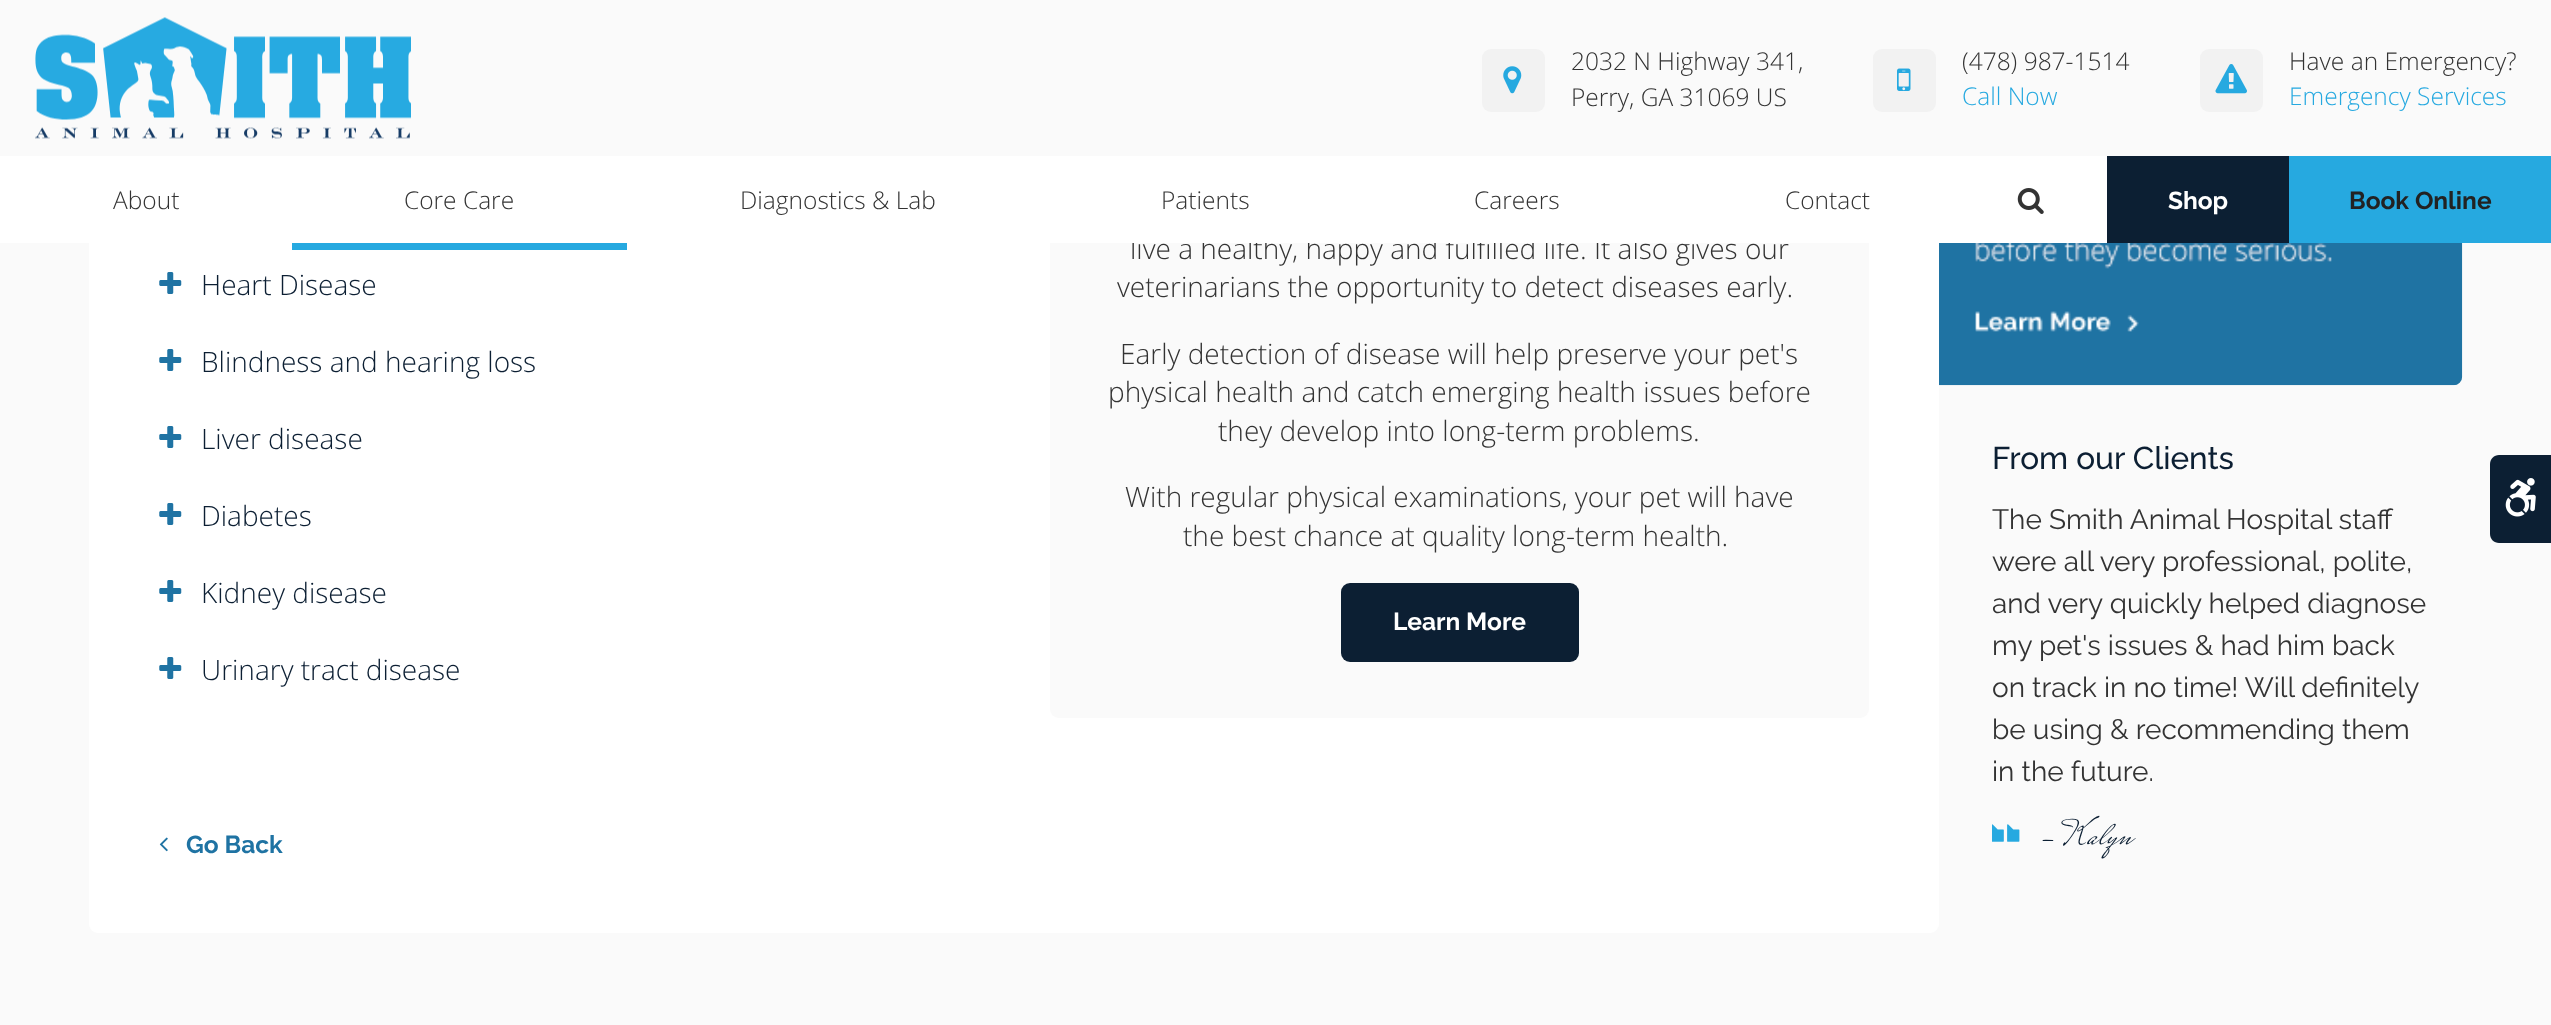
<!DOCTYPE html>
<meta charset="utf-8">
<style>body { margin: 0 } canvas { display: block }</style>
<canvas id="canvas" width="2551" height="1025"></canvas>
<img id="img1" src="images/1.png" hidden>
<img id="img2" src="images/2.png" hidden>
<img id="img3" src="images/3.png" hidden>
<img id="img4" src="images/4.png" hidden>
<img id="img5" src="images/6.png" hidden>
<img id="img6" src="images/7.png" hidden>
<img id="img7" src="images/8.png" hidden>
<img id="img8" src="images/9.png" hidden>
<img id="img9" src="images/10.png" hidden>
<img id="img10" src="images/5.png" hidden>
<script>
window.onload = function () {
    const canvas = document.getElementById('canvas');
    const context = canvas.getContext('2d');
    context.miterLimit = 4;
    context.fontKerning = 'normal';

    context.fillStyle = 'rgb(250, 250, 250)';
    context.fillRect(0, 0, 2551, 1025);
    context.fillStyle = 'rgb(255, 255, 255)';
    context.beginPath();
    context.roundRect(89, -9, 1850, 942, 9);
    context.fill();
    context.fillStyle = 'rgb(250, 250, 250)';
    context.beginPath();
    context.roundRect(1050, 53, 819, 665, 9);
    context.fill();
    context.fillRect(89, 0, 1850, 156);
    context.drawImage(document.getElementById('img1'), 35, 17, 376, 122);
    context.fillStyle = 'rgb(242, 242, 242)';
    context.beginPath();
    context.roundRect(1482, 49, 63, 63, 9);
    context.fill();
    context.drawImage(document.getElementById('img2'), 1503, 66, 19, 28);
    context.beginPath();
    context.roundRect(1873, 49, 63, 63, 9);
    context.fill();
    context.drawImage(document.getElementById('img3'), 1897, 68, 14, 23);
    context.beginPath();
    context.roundRect(2200, 49, 63, 63, 9);
    context.fill();
    context.drawImage(document.getElementById('img4'), 2215, 64, 32, 30);
    context.fillStyle = 'rgb(38, 169, 224)';
    context.fillRect(292, 243, 335, 7);
    context.fillStyle = 'rgb(12, 31, 51)';
    context.fillRect(2107, 156, 182, 87);
    context.fillStyle = 'rgb(38, 169, 224)';
    context.fillRect(2289, 156, 262, 87);
    context.fillStyle = 'rgb(12, 31, 51)';
    context.beginPath();
    context.moveTo(2499, 455);
    context.lineTo(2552, 455);
    context.lineTo(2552, 543);
    context.lineTo(2499, 543);
    context.bezierCurveTo(2494, 543, 2490, 539, 2490, 534);
    context.lineTo(2490, 464);
    context.bezierCurveTo(2490, 459, 2494, 455, 2499, 455);
    context.closePath();
    context.fill();
    context.drawImage(document.getElementById('img5'), 2505, 478, 31, 39);
    context.drawImage(document.getElementById('img6'), 159, 272, 23, 22);
    context.drawImage(document.getElementById('img6'), 159, 349, 23, 22);
    context.drawImage(document.getElementById('img6'), 159, 426, 23, 22);
    context.drawImage(document.getElementById('img6'), 159, 503, 23, 22);
    context.drawImage(document.getElementById('img6'), 159, 580, 23, 22);
    context.drawImage(document.getElementById('img6'), 159, 657, 23, 22);
    context.beginPath();
    context.roundRect(1341, 583, 238, 79, 9);
    context.fill();
    context.drawImage(document.getElementById('img7'), 159, 837, 9, 15);
    context.drawImage(document.getElementById('img8'), 1939, 243, 524, 143);
    context.drawImage(document.getElementById('img9'), 1992, 824, 28, 18);
    context.font = '300 24.5px Open Sans';
    context.fillStyle = 'rgb(51, 51, 51)';
    context.fillText('2032 N Highway 341,', 1571, 70);
    context.fillText('Perry, GA 31069 US', 1571, 106);
    context.fillText('(478) 987-1514', 1962, 70);
    context.fillStyle = 'rgb(38, 169, 224)';
    context.fillText('Call Now', 1962, 105);
    context.fillStyle = 'rgb(51, 51, 51)';
    context.fillText('Have an Emergency?', 2289, 70);
    context.fillStyle = 'rgb(38, 169, 224)';
    context.fillText('Emergency Services', 2289, 105);
    context.font = 'bold 24.5px Raleway';
    context.fillStyle = 'rgb(255, 255, 255)';
    context.fillText('Shop', 2168, 209);
    context.fillStyle = 'rgb(34, 34, 34)';
    context.fillText('Book Online', 2349, 209);
    context.font = '300 28px Open Sans';
    context.fillStyle = 'rgb(12, 31, 51)';
    context.fillText('Heart Disease', 201, 295);
    context.fillText('Blindness and hearing loss', 201, 372);
    context.fillText('Liver disease', 201, 449);
    context.fillText('Diabetes', 201, 526);
    context.fillText('Kidney disease', 201, 603);
    context.fillText('Urinary tract disease', 201, 680);
    context.fillStyle = 'rgb(51, 51, 51)';
    context.fillText('live a healthy, happy and fulfilled life. It also gives our', 1130, 259);
    context.fillStyle = 'rgb(255, 255, 255)';
    context.fillRect(0, 156, 2107, 87);
    context.font = '300 24.5px Open Sans';
    context.fillStyle = 'rgb(51, 51, 51)';
    context.fillText('Contact', 1785, 209);
    context.fillText('Careers', 1474, 209);
    context.fillText('Patients', 1161, 209);
    context.fillText('Diagnostics & Lab', 740, 209);
    context.fillText('Core Care', 404, 209);
    context.fillText('About', 113, 209);
    context.drawImage(document.getElementById('img10'), 2017, 188, 27, 26);
    context.font = '300 28px Open Sans';
    context.fillText('veterinarians the opportunity to detect diseases early.', 1117, 297);
    context.fillText('Early detection of disease will help preserve your pet\'s', 1120, 364);
    context.fillText('physical health and catch emerging health issues before', 1108, 402);
    context.fillText('they develop into long-term problems.', 1218, 441);
    context.fillText('With regular physical examinations, your pet will have', 1125, 507);
    context.fillText('the best chance at quality long-term health.', 1183, 546);
    context.font = 'bold 24.5px Raleway';
    context.fillStyle = 'rgb(255, 255, 255)';
    context.fillText('Learn More', 1393, 630);
    context.fillStyle = 'rgb(31, 115, 163)';
    context.fillText('Go Back', 186, 853);
    context.font = '500 31.5px Raleway';
    context.fillStyle = 'rgb(12, 31, 51)';
    context.fillText('From our Clients', 1992, 469);
    context.font = '28px Raleway';
    context.fillStyle = 'rgb(51, 51, 51)';
    context.fillText('The Smith Animal Hospital staff', 1992, 529);
    context.fillText('were all very professional, polite,', 1992, 571);
    context.fillText('and very quickly helped diagnose', 1992, 613);
    context.fillText('my pet\'s issues & had him back', 1992, 655);
    context.fillText('on track in no time! Will definitely', 1992, 697);
    context.fillText('be using & recommending them', 1992, 739);
    context.fillText('in the future.', 1992, 781);
    context.font = '35px Mrs Saint Delafield';
    context.fillStyle = 'rgb(12, 31, 51)';
    context.fillText('- Kalyn', 2037, 844);
};
</script>
